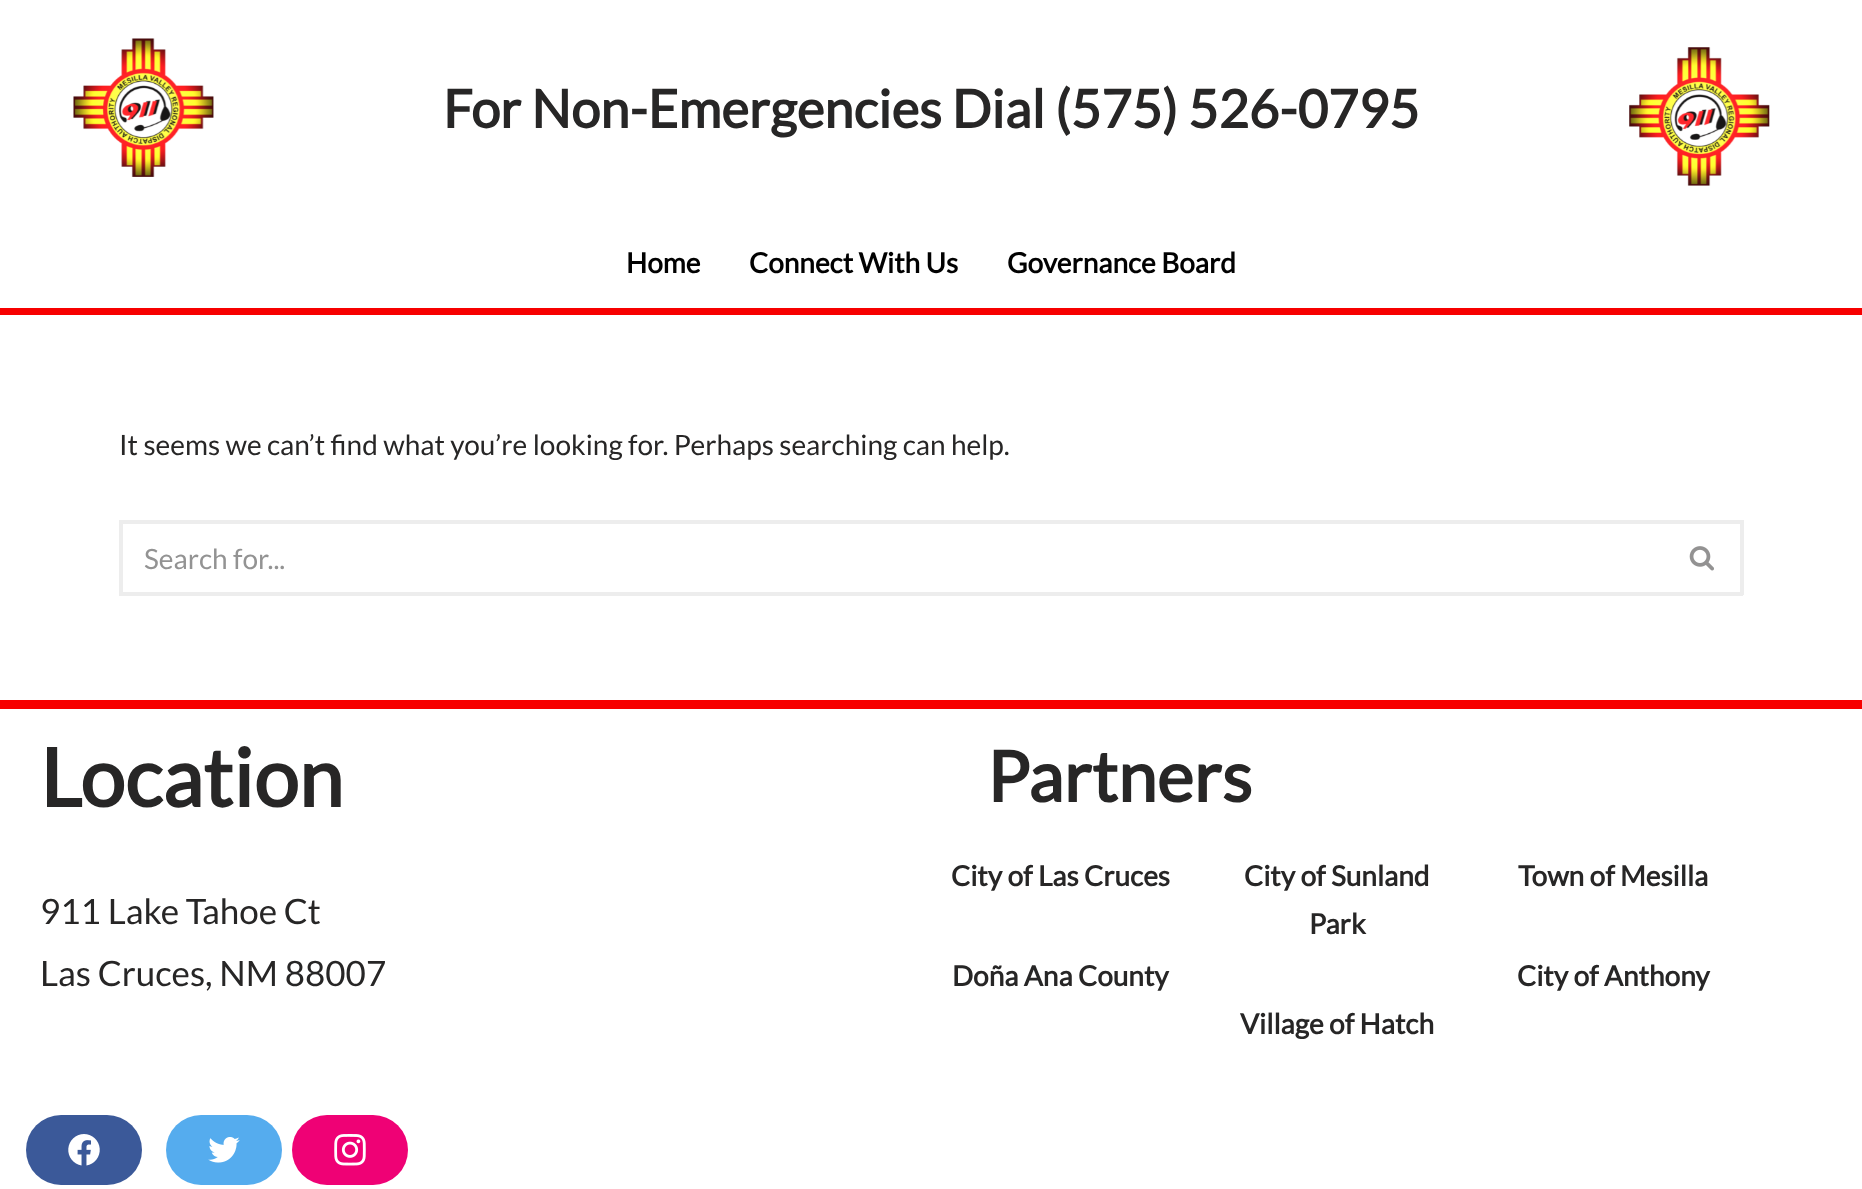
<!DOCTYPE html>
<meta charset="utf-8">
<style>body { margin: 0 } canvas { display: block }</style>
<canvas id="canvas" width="1862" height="1189"></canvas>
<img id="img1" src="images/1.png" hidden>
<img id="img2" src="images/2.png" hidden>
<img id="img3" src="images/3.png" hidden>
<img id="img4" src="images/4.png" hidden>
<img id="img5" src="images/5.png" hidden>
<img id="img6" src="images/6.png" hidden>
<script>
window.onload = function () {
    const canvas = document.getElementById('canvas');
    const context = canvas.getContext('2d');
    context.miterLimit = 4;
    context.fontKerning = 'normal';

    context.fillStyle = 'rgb(255, 255, 255)';
    context.fillRect(0, 0, 1862, 1189);
    context.drawImage(document.getElementById('img1'), 73, 38, 141, 139);
    context.drawImage(document.getElementById('img2'), 1629, 47, 141, 139);
    context.fillStyle = 'rgb(247, 0, 0)';
    context.fillRect(0, 308, 1862, 7);
    context.fillStyle = 'rgb(237, 237, 237)';
    context.fillRect(119, 520, 1624, 4);
    context.fillRect(119, 592, 1545, 4);
    context.fillRect(119, 520, 4, 75);
    context.fillRect(1740, 520, 4, 75);
    context.fillRect(1664, 592, 79, 4);
    context.drawImage(document.getElementById('img3'), 1689, 546, 25, 25);
    context.fillStyle = 'rgb(247, 0, 0)';
    context.fillRect(0, 700, 1862, 9);
    context.fillStyle = 'rgb(59, 89, 153)';
    context.beginPath();
    context.roundRect(26, 1115, 116, 70, 35);
    context.fill();
    context.drawImage(document.getElementById('img4'), 68, 1134, 32, 32);
    context.fillStyle = 'rgb(85, 172, 238)';
    context.beginPath();
    context.roundRect(166, 1115, 116, 70, 35);
    context.fill();
    context.drawImage(document.getElementById('img5'), 208, 1137, 32, 26);
    context.fillStyle = 'rgb(239, 1, 117)';
    context.beginPath();
    context.roundRect(292, 1115, 116, 70, 35);
    context.fill();
    context.drawImage(document.getElementById('img6'), 334, 1134, 32, 32);
    context.font = 'bold 52.5px Lato';
    context.fillStyle = 'rgb(39, 38, 38)';
    context.fillText('For Non-Emergencies Dial (575) 526-0795', 443, 128);
    context.font = 'bold 28px Lato';
    context.fillStyle = 'rgb(1, 1, 1)';
    context.fillText('Home', 626, 273);
    context.fillText('Connect With Us', 749, 273);
    context.fillText('Governance Board', 1007, 273);
    context.font = '28px Lato';
    context.fillStyle = 'rgb(39, 38, 38)';
    context.fillText('It seems we can’t find what you’re looking for. Perhaps searching can help.', 119, 455);
    context.fillStyle = 'rgb(147, 147, 147)';
    context.fillText('Search for...', 144, 569);
    context.font = 'bold 80.5px Lato';
    context.fillStyle = 'rgb(39, 38, 38)';
    context.fillText('Location', 40, 807);
    context.font = '35px Lato';
    context.fillText('911 Lake Tahoe Ct', 40, 924);
    context.fillText('Las Cruces, NM 88007', 40, 986);
    context.font = 'bold 70px Lato';
    context.fillText('Partners', 987, 802);
    context.font = 'bold 28px Lato';
    context.fillText('City of Las Cruces', 951, 886);
    context.fillText('Doña Ana County', 952, 986);
    context.fillText('City of Sunland', 1244, 886);
    context.fillText('Park', 1309, 934);
    context.fillText('Village of Hatch', 1240, 1034);
    context.fillText('Town of Mesilla', 1518, 886);
    context.fillText('City of Anthony', 1517, 986);
};
</script>
